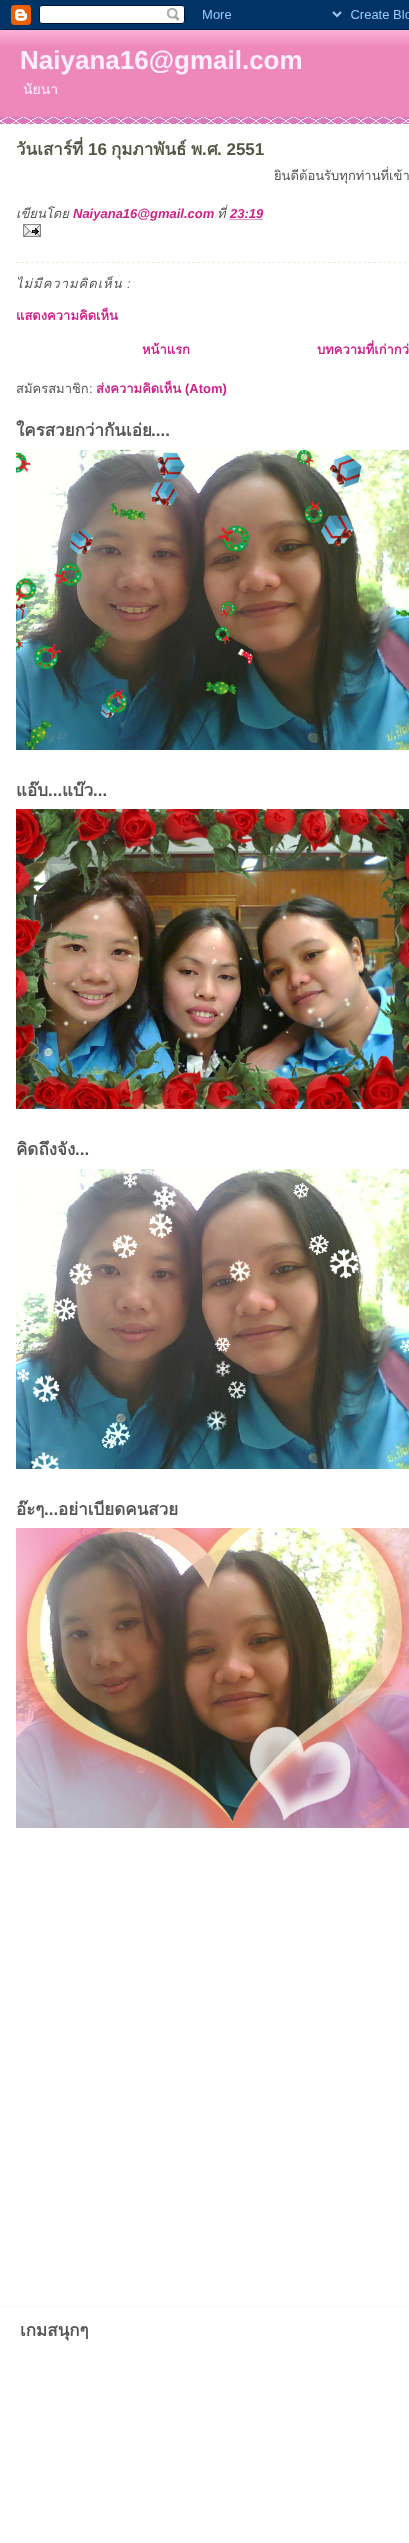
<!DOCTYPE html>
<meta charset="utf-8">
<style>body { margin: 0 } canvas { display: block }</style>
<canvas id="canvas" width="409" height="2543"></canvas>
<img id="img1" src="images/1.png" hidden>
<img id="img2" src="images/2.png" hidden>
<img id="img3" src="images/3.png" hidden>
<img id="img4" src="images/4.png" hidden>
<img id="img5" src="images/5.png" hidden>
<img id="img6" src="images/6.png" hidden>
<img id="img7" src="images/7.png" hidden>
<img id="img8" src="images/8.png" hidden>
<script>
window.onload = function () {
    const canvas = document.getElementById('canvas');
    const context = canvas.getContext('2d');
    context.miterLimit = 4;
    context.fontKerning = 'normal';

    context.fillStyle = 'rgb(255, 255, 255)';
    context.fillRect(0, 0, 409, 2543);
    context.drawImage(document.getElementById('img1'), 0, 0, 409, 30);
    context.fillStyle = 'rgb(238, 136, 187)';
    context.fillRect(0, 46, 409, 71);
    context.drawImage(document.getElementById('img2'), 0, 117, 409, 7);
    context.drawImage(document.getElementById('img3'), 0, 30, 409, 16);
    context.beginPath();
    context.moveTo(229.5, 219.5);
    context.lineTo(263, 219.5);
    context.strokeStyle = 'rgb(204, 34, 136)';
    context.setLineDash([1, 1]);
    context.stroke();
    context.drawImage(document.getElementById('img4'), 23, 224, 18, 13);
    context.beginPath();
    context.moveTo(16, 262.5);
    context.lineTo(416, 262.5);
    context.strokeStyle = 'rgb(238, 238, 221)';
    context.setLineDash([3, 2.03]);
    context.stroke();
    context.drawImage(document.getElementById('img5'), 16, 450, 393, 300);
    context.drawImage(document.getElementById('img6'), 16, 809, 393, 300);
    context.drawImage(document.getElementById('img7'), 16, 1169, 393, 300);
    context.drawImage(document.getElementById('img8'), 16, 1528, 393, 300);
    context.fillStyle = 'rgb(249, 249, 249)';
    context.fillRect(0, 2306, 409, 1);
    context.font = 'bold 26px Liberation Sans';
    context.fillStyle = 'rgb(255, 238, 255)';
    context.fillText('Naiyana16@gmail.com', 20, 69);
    context.font = '14px Loma';
    context.fillText('นัยนา', 23, 94);
    context.save();
    context.beginPath();
    context.rect(16, 124, 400, 1719);
    context.clip();
    context.font = 'bold 17px Loma';
    context.fillStyle = 'rgb(85, 85, 68)';
    context.fillText('วันเสาร์ที่', 16, 155);
    context.restore();
    context.font = 'bold 17px Liberation Sans';
    context.fillStyle = 'rgb(85, 85, 68)';
    context.fillText('16', 88, 155);
    context.font = 'bold 17px Loma';
    context.fillText('กุมภาพันธ์', 111, 155);
    context.fillText('พ', 191, 155);
    context.font = 'bold 17px Liberation Sans';
    context.fillText('.', 202, 155);
    context.font = 'bold 17px Loma';
    context.fillText('ศ', 207, 155);
    context.font = 'bold 17px Liberation Sans';
    context.fillText('. 2551', 217, 155);
    context.font = '13px Loma';
    context.fillStyle = 'rgb(85, 85, 85)';
    context.fillText('ยินดีต้อนรับทุกท่านที่เข้า', 274, 180);
    context.font = 'italic 13px Loma';
    context.fillText('เขียนโดย', 16, 218);
    context.font = 'italic bold 13px Liberation Sans';
    context.fillStyle = 'rgb(204, 34, 136)';
    context.fillText('Naiyana16@gmail.com', 73, 218);
    context.font = 'italic 13px Loma';
    context.fillStyle = 'rgb(85, 85, 85)';
    context.fillText('ที่', 217, 218);
    context.font = 'italic bold 13px Liberation Sans';
    context.fillStyle = 'rgb(204, 34, 136)';
    context.fillText('23:19', 230, 218);
    context.letterSpacing = '1px';
    context.font = 'italic 13px Loma';
    context.fillStyle = 'rgb(85, 85, 85)';
    context.fillText('ไม่มีความคิดเห็น', 16, 288);
    context.font = 'italic 13px Liberation Sans';
    context.fillText(':', 127, 288);
    context.letterSpacing = '0px';
    context.font = 'bold 13px Loma';
    context.fillStyle = 'rgb(204, 34, 136)';
    context.fillText('แสดงความคิดเห็น', 16, 320);
    context.fillText('หน้าแรก', 142, 354);
    context.fillText('บทความที่เก่ากว่', 317, 354);
    context.font = '13px Loma';
    context.fillStyle = 'rgb(85, 85, 85)';
    context.fillText('สมัครสมาชิก', 16, 393);
    context.font = '13px Liberation Sans';
    context.fillText(':', 89, 393);
    context.font = 'bold 13px Loma';
    context.fillStyle = 'rgb(204, 34, 136)';
    context.fillText('ส่งความคิดเห็น', 96, 393);
    context.font = 'bold 13px Liberation Sans';
    context.fillText('(Atom)', 185, 393);
    context.font = 'bold 17px Loma';
    context.fillStyle = 'rgb(85, 85, 85)';
    context.fillText('ใครสวยกว่ากันเอ่ย', 16, 436);
    context.font = 'bold 17px Liberation Sans';
    context.fillText('....', 151, 436);
    context.font = 'bold 17px Loma';
    context.fillText('แอ๊บ', 16, 796);
    context.font = 'bold 17px Liberation Sans';
    context.fillText('...', 48, 796);
    context.font = 'bold 17px Loma';
    context.fillText('แบ๊ว', 62, 796);
    context.font = 'bold 17px Liberation Sans';
    context.fillText('...', 93, 796);
    context.save();
    context.beginPath();
    context.rect(16, 124, 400, 1719);
    context.clip();
    context.font = 'bold 17px Loma';
    context.fillText('คิดถึงจัง', 16, 1155);
    context.restore();
    context.fillText('...', 75, 1155);
    context.save();
    context.beginPath();
    context.rect(16, 124, 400, 1719);
    context.clip();
    context.font = 'bold 17px Loma';
    context.fillText('อ๊ะๆ', 16, 1515);
    context.restore();
    context.fillText('...', 44, 1515);
    context.font = 'bold 17px Loma';
    context.fillText('อย่าเบียดคนสวย', 58, 1515);
    context.fillText('เกมสนุกๆ', 20, 2336);
};
</script>
